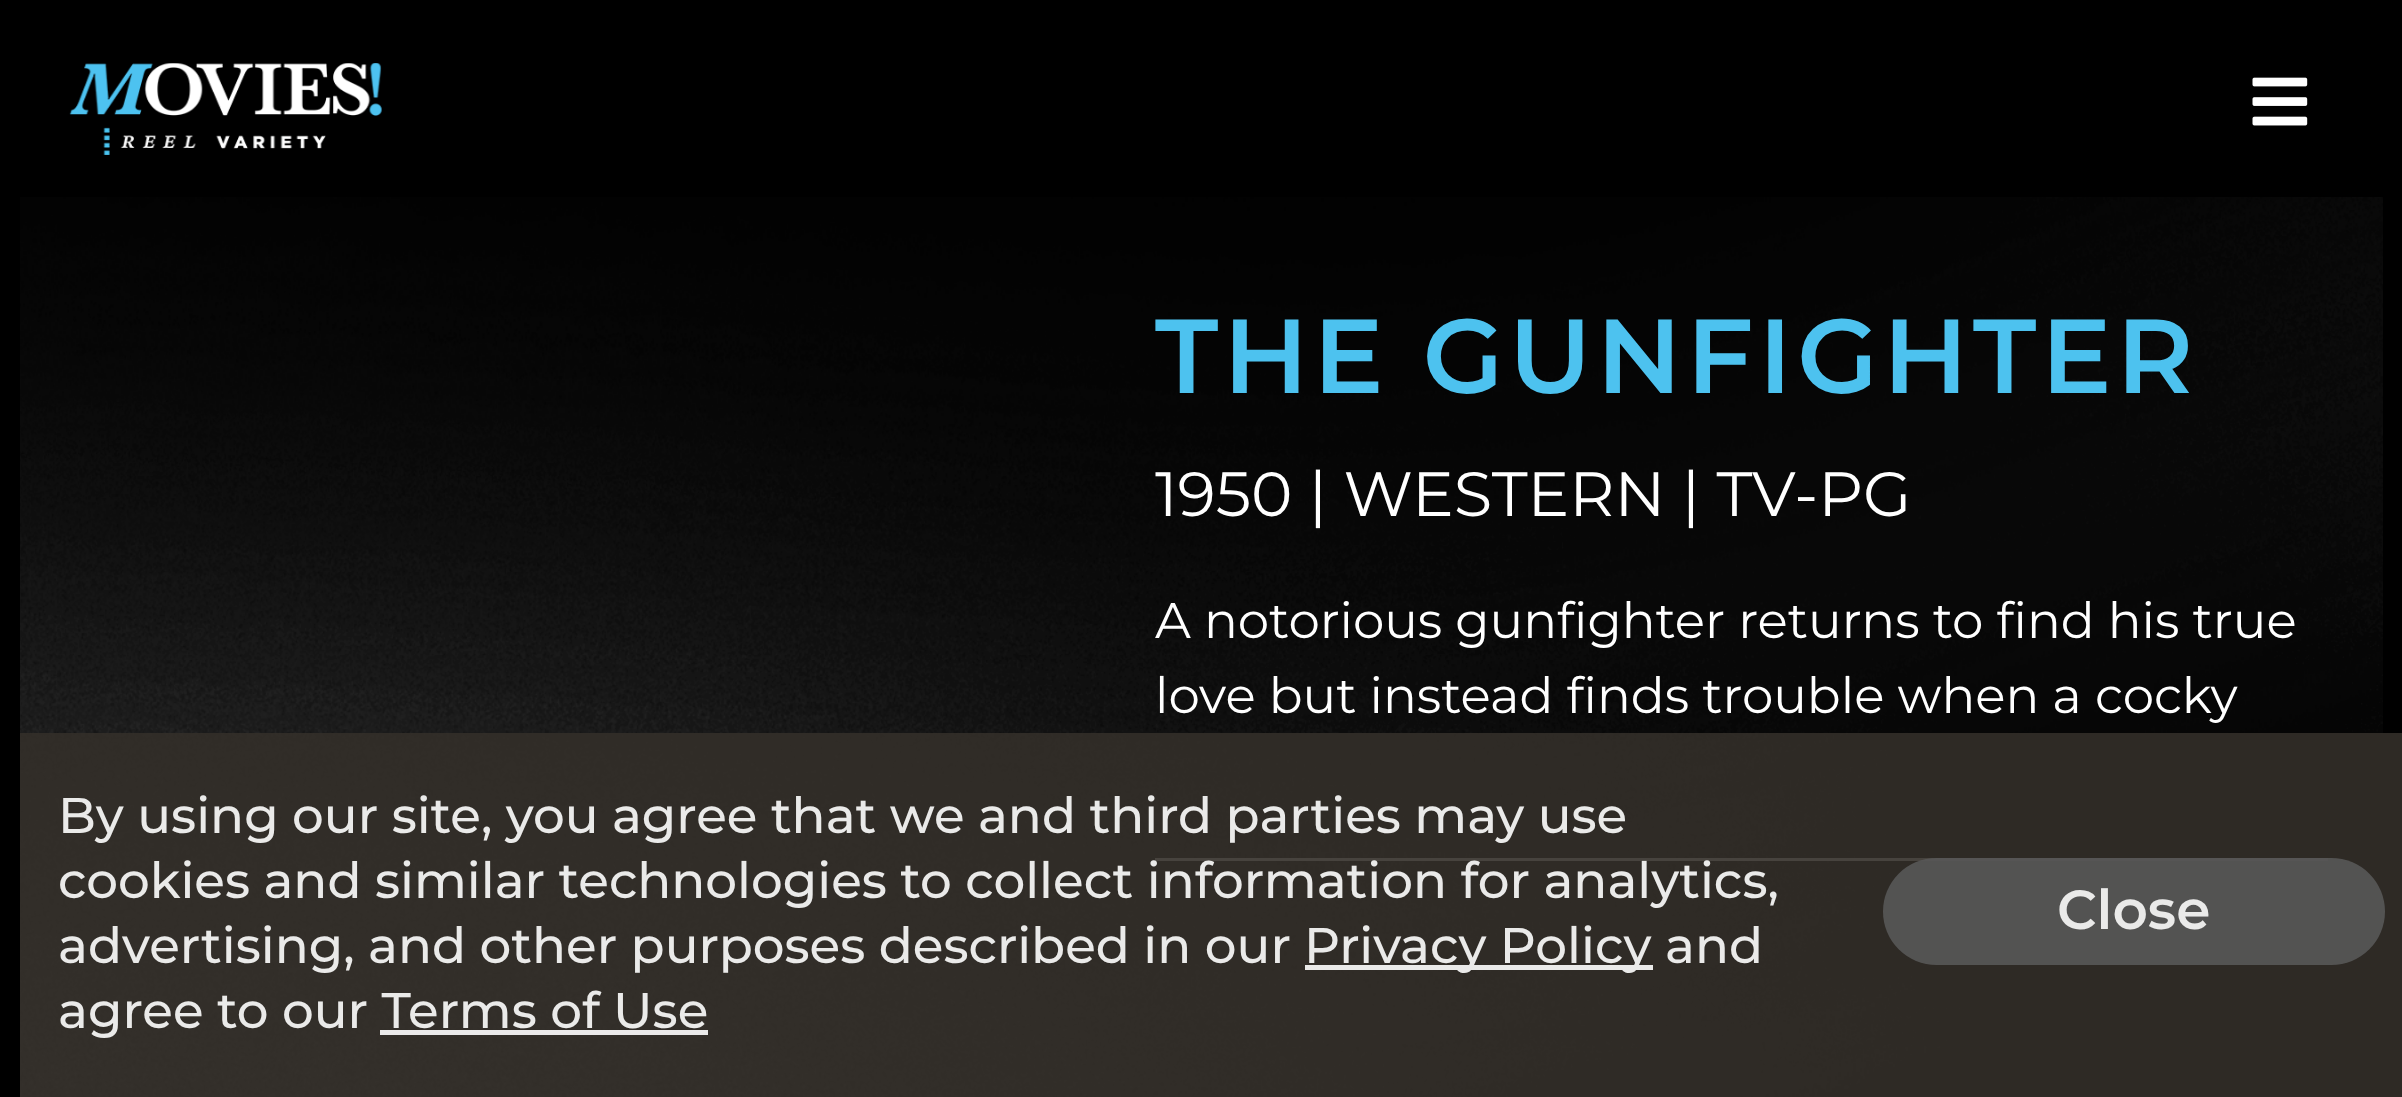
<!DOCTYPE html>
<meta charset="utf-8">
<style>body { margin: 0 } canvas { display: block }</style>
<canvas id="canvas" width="2402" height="1097"></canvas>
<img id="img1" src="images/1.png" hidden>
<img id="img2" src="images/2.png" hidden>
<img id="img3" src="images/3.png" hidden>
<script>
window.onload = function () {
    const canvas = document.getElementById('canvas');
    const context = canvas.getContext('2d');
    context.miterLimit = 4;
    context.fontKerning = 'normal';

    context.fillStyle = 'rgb(0, 0, 0)';
    context.fillRect(0, 0, 2402, 1097);
    context.drawImage(document.getElementById('img1'), 69, 63, 313, 92);
    context.drawImage(document.getElementById('img2'), 2252, 77, 56, 49);
    context.drawImage(document.getElementById('img3'), 20, 197, 2363, 900);
    context.fillStyle = 'rgb(255, 255, 255)';
    context.fillRect(1155, 858, 1173, 3);
    context.fillStyle = 'rgba(51, 47, 41, 0.9)';
    context.fillRect(20, 733, 2382, 364);
    context.fillStyle = 'rgba(255, 255, 255, 0.9)';
    context.fillRect(1305, 965, 348, 5);
    context.fillStyle = 'rgba(88, 88, 88, 0.9)';
    context.beginPath();
    context.roundRect(1883, 858, 502, 107, 53.5);
    context.fill();
    context.letterSpacing = '5px';
    context.font = '600 105px Montserrat';
    context.fillStyle = 'rgb(77, 194, 239)';
    context.fillText('THE GUNFIGHTER', 1155, 393);
    context.letterSpacing = '0px';
    context.font = '62.5px Montserrat';
    context.fillStyle = 'rgb(255, 255, 255)';
    context.fillText('1950 | WESTERN | TV-PG', 1155, 516);
    context.font = '50px Montserrat';
    context.fillText('A notorious gunfighter returns to find his true', 1155, 638);
    context.fillText('love but instead finds trouble when a cocky', 1155, 713);
    context.font = '500 50px Montserrat';
    context.fillStyle = 'rgb(234, 234, 233)';
    context.fillText('By using our site, you agree that we and third parties may use', 58, 833);
    context.fillText('cookies and similar technologies to collect information for analytics,', 58, 898);
    context.fillText('advertising, and other purposes described in our', 58, 963);
    context.fillText('Privacy Policy', 1304, 963);
    context.fillText('and', 1665, 963);
    context.fillText('agree to our Terms of Use', 58, 1028);
    context.fillStyle = 'rgb(235, 234, 234)';
    context.fillRect(380, 1030, 328, 5);
    context.font = '600 55px Montserrat';
    context.fillStyle = 'rgb(234, 234, 233)';
    context.fillText('Close', 2057, 929);
};
</script>
